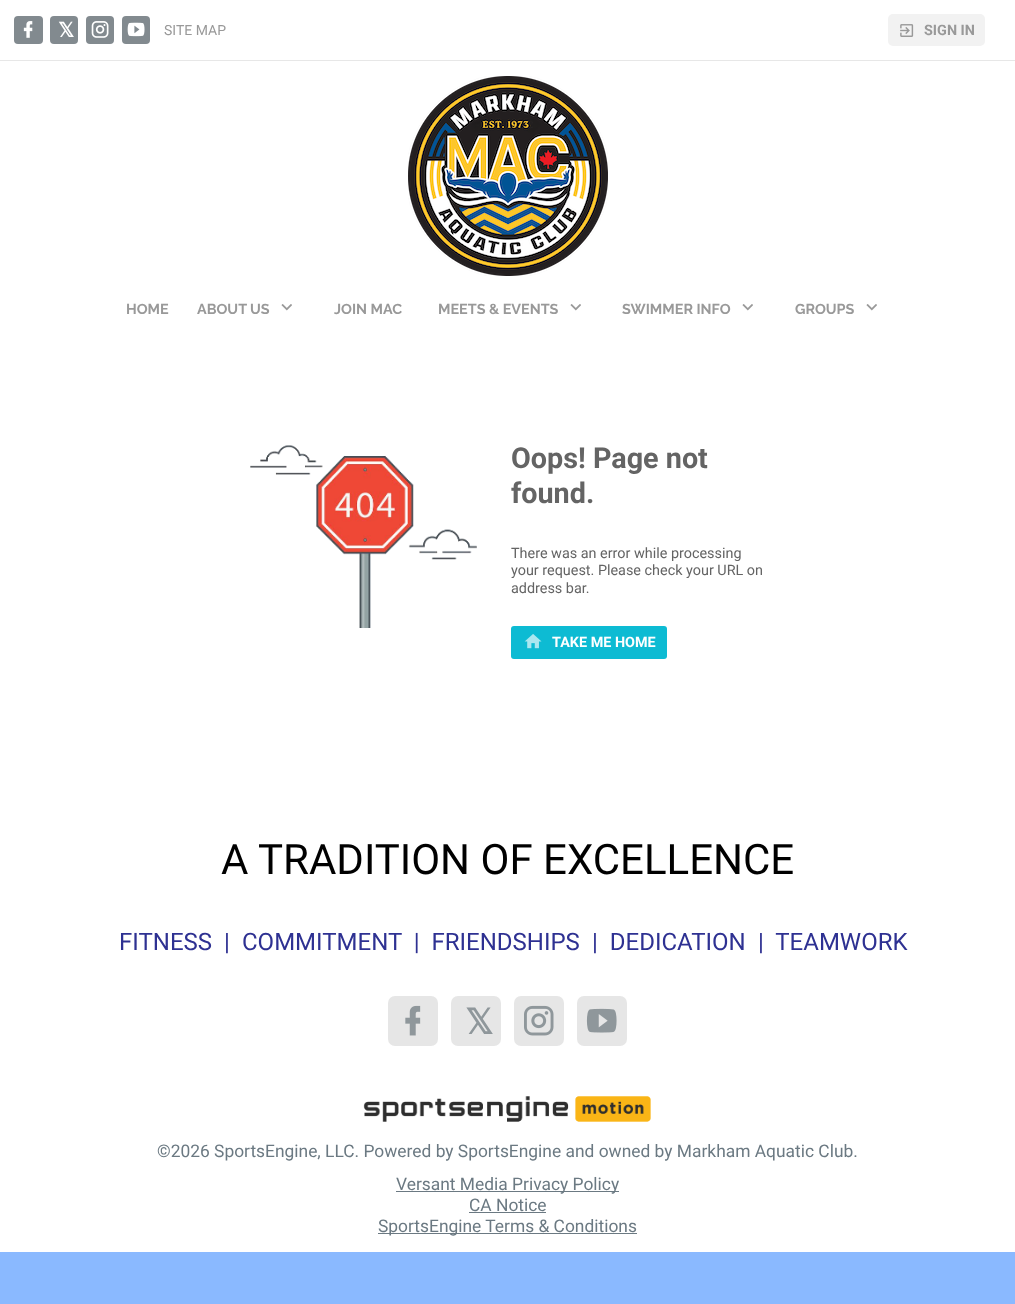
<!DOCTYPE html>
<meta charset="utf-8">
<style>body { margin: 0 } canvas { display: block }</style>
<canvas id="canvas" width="1015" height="1304"></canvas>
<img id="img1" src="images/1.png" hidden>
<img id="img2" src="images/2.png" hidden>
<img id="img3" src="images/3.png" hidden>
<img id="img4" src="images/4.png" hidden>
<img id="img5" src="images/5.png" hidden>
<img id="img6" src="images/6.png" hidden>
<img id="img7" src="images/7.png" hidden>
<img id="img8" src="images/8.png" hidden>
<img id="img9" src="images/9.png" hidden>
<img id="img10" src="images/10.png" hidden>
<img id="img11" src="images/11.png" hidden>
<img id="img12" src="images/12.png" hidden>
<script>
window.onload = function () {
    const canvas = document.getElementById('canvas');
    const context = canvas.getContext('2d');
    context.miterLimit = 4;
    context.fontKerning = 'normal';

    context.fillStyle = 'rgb(138, 185, 255)';
    context.fillRect(0, 0, 1015, 1304);
    context.fillStyle = 'rgb(255, 255, 255)';
    context.fillRect(0, 0, 1015, 1252);
    context.fillStyle = 'rgb(231, 231, 231)';
    context.fillRect(0, 60, 1015, 1);
    context.fillStyle = 'rgb(130, 138, 143)';
    context.beginPath();
    context.roundRect(14, 16, 29, 28, 4);
    context.fill();
    context.drawImage(document.getElementById('img1'), 23, 21, 10, 17);
    context.beginPath();
    context.roundRect(50, 16, 28, 28, 4);
    context.fill();
    context.beginPath();
    context.roundRect(86, 16, 28, 28, 4);
    context.fill();
    context.drawImage(document.getElementById('img2'), 91, 21, 18, 17);
    context.beginPath();
    context.roundRect(122, 16, 28, 28, 4);
    context.fill();
    context.drawImage(document.getElementById('img3'), 127, 22, 18, 15);
    context.fillStyle = 'rgb(242, 242, 242)';
    context.beginPath();
    context.roundRect(888, 14, 97, 32, 5);
    context.fill();
    context.drawImage(document.getElementById('img4'), 900, 24, 14, 13);
    context.drawImage(document.getElementById('img5'), 408, 76, 200, 200);
    context.drawImage(document.getElementById('img6'), 281, 304, 11, 7);
    context.drawImage(document.getElementById('img6'), 570, 304, 11, 7);
    context.drawImage(document.getElementById('img6'), 742, 304, 11, 7);
    context.drawImage(document.getElementById('img6'), 866, 304, 11, 7);
    context.drawImage(document.getElementById('img7'), 250, 445, 227, 183);
    context.fillStyle = 'rgb(13, 187, 211)';
    context.beginPath();
    context.roundRect(511, 626, 156, 33, 3);
    context.fill();
    context.drawImage(document.getElementById('img8'), 524, 634, 18, 15);
    context.fillStyle = 'rgb(230, 230, 230)';
    context.beginPath();
    context.roundRect(388, 996, 50, 50, 7);
    context.fill();
    context.drawImage(document.getElementById('img9'), 405, 1005, 16, 31);
    context.beginPath();
    context.roundRect(451, 996, 50, 50, 7);
    context.fill();
    context.beginPath();
    context.roundRect(514, 996, 50, 50, 7);
    context.fill();
    context.drawImage(document.getElementById('img10'), 524, 1005, 30, 31);
    context.beginPath();
    context.roundRect(577, 996, 50, 50, 7);
    context.fill();
    context.drawImage(document.getElementById('img11'), 586, 1008, 31, 25);
    context.drawImage(document.getElementById('img12'), 363, 1096, 288, 26);
    context.fillStyle = 'rgb(107, 121, 130)';
    context.fillRect(396, 1191, 223, 1);
    context.fillRect(469, 1212, 77, 1);
    context.fillRect(378, 1233, 259, 1);
    context.font = 'bold 20px DejaVu Sans';
    context.fillStyle = 'rgb(255, 255, 255)';
    context.fillText('𝕏', 58, 37);
    context.font = '14px Roboto';
    context.fillStyle = 'rgb(153, 153, 153)';
    context.fillText('SITE MAP', 164, 35);
    context.font = 'bold 14.4px Roboto';
    context.fillText('SIGN IN', 924, 35);
    context.font = 'bold 14.4px Raleway';
    context.fillText('HOME', 126, 314);
    context.fillText('ABOUT US', 197, 314);
    context.fillText('JOIN MAC', 334, 314);
    context.fillText('MEETS & EVENTS', 438, 314);
    context.fillText('SWIMMER INFO', 622, 314);
    context.fillText('GROUPS', 795, 314);
    context.font = 'bold 28.75px Roboto';
    context.fillStyle = 'rgb(100, 100, 100)';
    context.fillText('Oops! Page not', 511, 468);
    context.fillText('found.', 511, 503);
    context.font = '14.4px Roboto';
    context.fillText('There was an error while processing', 511, 558);
    context.fillText('your request. Please check your URL on', 511, 575);
    context.fillText('address bar.', 511, 593);
    context.font = 'bold 14.4px Roboto';
    context.fillStyle = 'rgb(255, 255, 255)';
    context.fillText('TAKE ME HOME', 552, 647);
    context.font = '42px Roboto';
    context.fillStyle = 'rgb(0, 0, 0)';
    context.fillText('A TRADITION OF EXCELLENCE', 221, 874);
    context.font = '24px Roboto';
    context.fillStyle = 'rgb(46, 49, 146)';
    context.fillText('FITNESS', 119, 950);
    context.fillText('|', 224, 950);
    context.fillText('COMMITMENT  |  FRIENDSHIPS', 242, 950);
    context.fillText('|  DEDICATION', 592, 950);
    context.fillText('|  TEAMWORK', 758, 950);
    context.font = 'bold 35px DejaVu Sans';
    context.fillStyle = 'rgb(143, 151, 155)';
    context.fillText('𝕏', 465, 1034);
    context.font = '17.4px Roboto';
    context.fillStyle = 'rgb(107, 121, 130)';
    context.fillText('©2026 SportsEngine, LLC. Powered by SportsEngine and owned by Markham Aquatic Club.', 157, 1157);
    context.fillText('Versant Media Privacy Policy', 396, 1190);
    context.fillText('CA Notice', 469, 1211);
    context.fillText('SportsEngine Terms & Conditions', 378, 1232);
};
</script>
